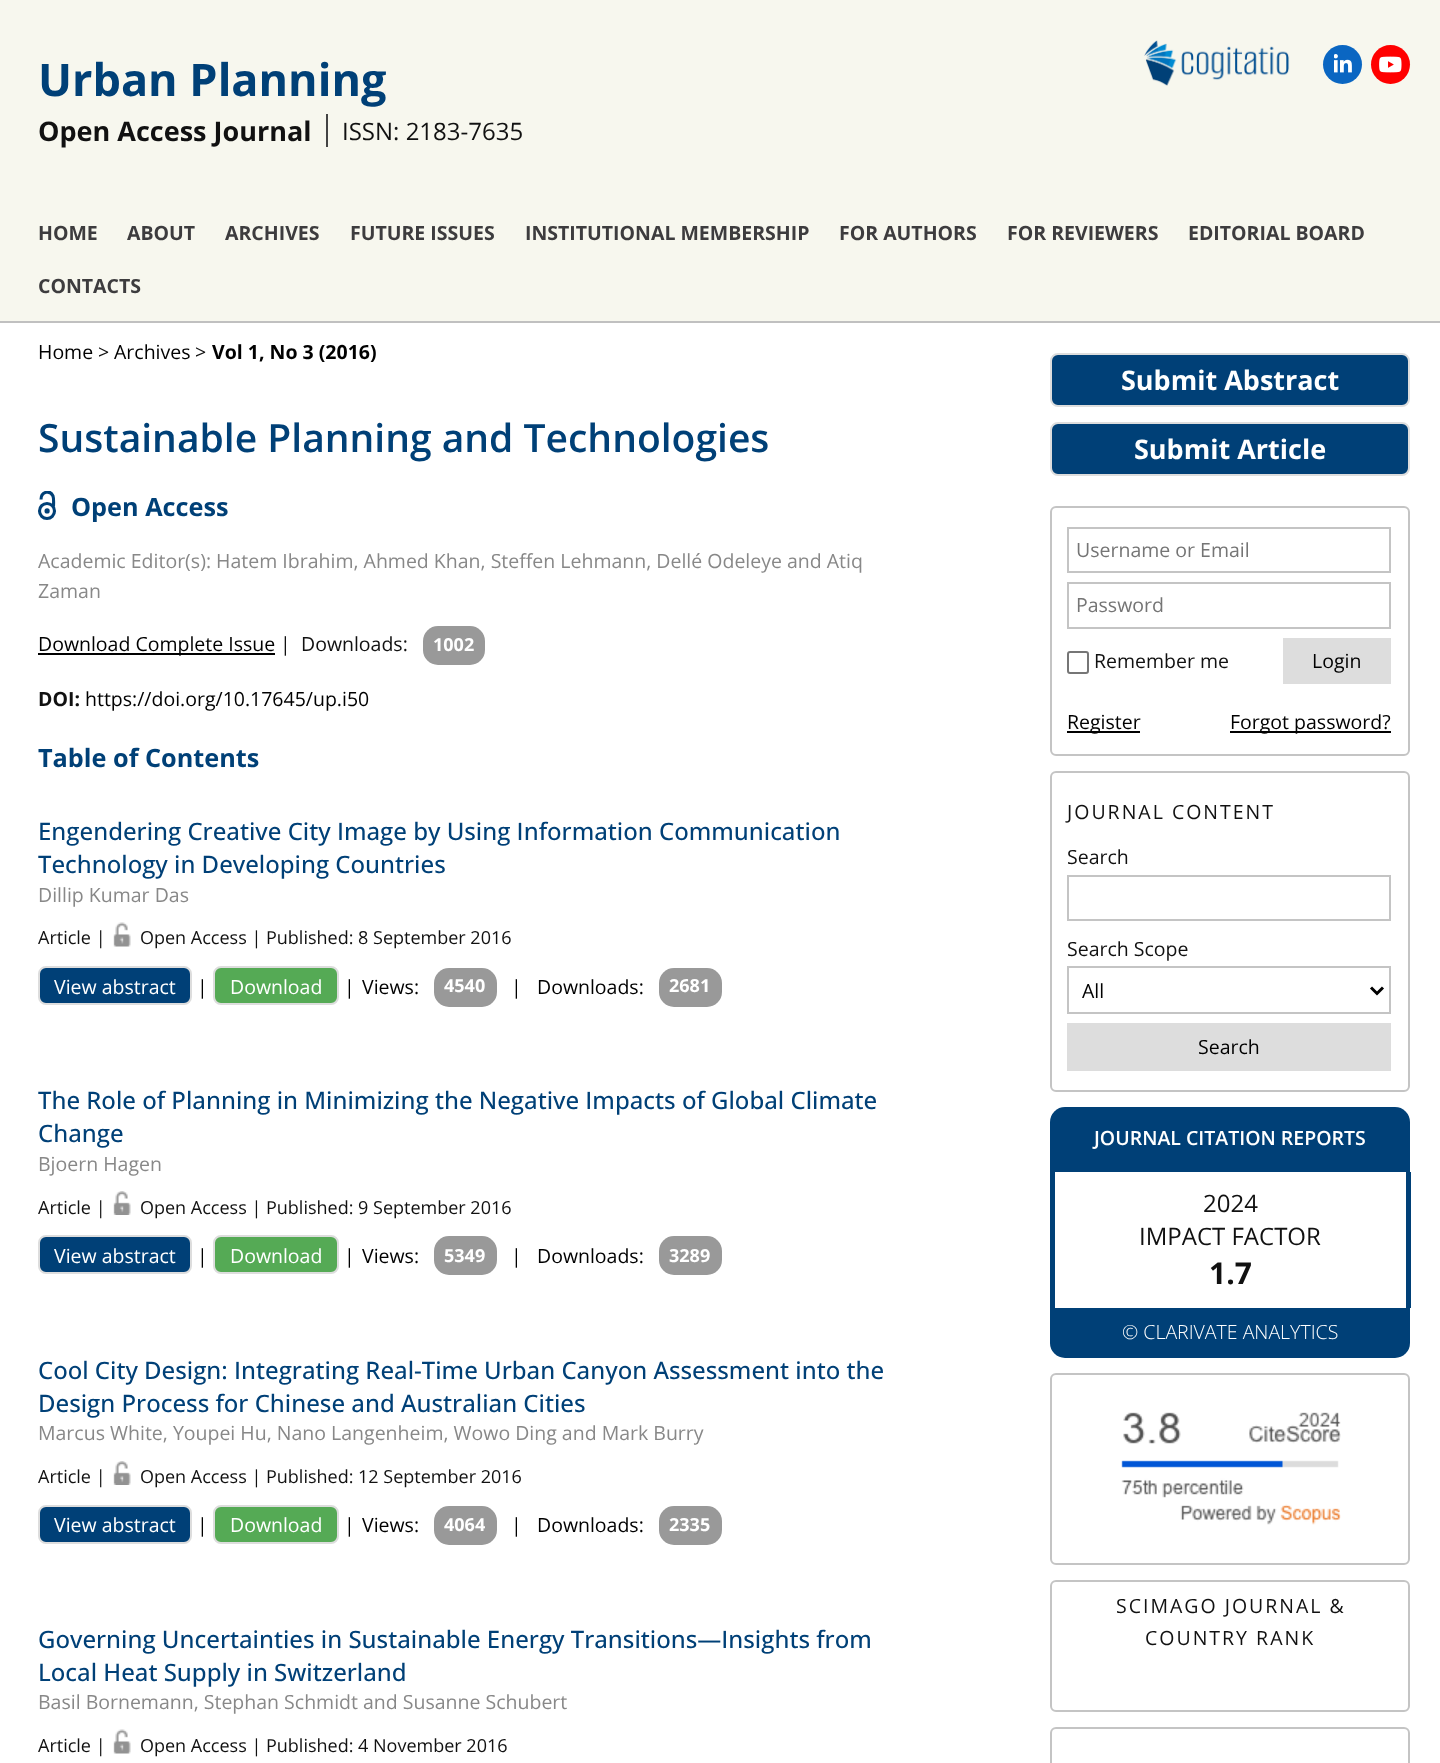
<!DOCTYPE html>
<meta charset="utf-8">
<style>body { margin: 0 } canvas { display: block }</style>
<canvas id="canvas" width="1440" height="1763"></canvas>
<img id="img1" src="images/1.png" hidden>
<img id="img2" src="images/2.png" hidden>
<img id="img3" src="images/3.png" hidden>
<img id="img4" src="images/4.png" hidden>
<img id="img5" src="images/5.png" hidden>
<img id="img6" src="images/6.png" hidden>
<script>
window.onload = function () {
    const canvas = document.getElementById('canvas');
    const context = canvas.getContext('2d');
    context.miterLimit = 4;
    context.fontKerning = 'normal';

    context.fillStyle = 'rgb(255, 255, 255)';
    context.fillRect(0, 0, 1440, 1763);
    context.fillStyle = 'rgb(247, 247, 238)';
    context.fillRect(0, 0, 1440, 321);
    context.fillStyle = 'rgb(192, 192, 192)';
    context.fillRect(0, 321, 1440, 2);
    context.drawImage(document.getElementById('img1'), 1144, 40, 146, 46);
    context.fillStyle = 'rgb(10, 102, 194)';
    context.beginPath();
    context.arc(1342.5, 64.5, 19.5, 0, 2 * Math.PI);
    context.fill();
    context.drawImage(document.getElementById('img2'), 1334, 54, 18, 19);
    context.fillStyle = 'rgb(255, 0, 0)';
    context.beginPath();
    context.arc(1390.5, 64.5, 19.5, 0, 2 * Math.PI);
    context.fill();
    context.drawImage(document.getElementById('img3'), 1379, 56, 23, 17);
    context.fillStyle = 'rgb(68, 68, 68)';
    context.fillRect(326, 114, 2, 33);
    context.save();
    context.beginPath();
    context.rect(38, 491, 19, 30);
    context.clip();
    context.beginPath();
    context.moveTo(41, 499.5);
    context.bezierCurveTo(41, 491.5, 50, 489.5, 53, 496);
    context.bezierCurveTo(54, 499, 53.5, 503.5, 53.5, 506.5);
    context.strokeStyle = 'rgb(0, 64, 119)';
    context.lineWidth = 3.1;
    context.stroke();
    context.restore();
    context.beginPath();
    context.arc(47, 511, 7.5, 0, 2 * Math.PI);
    context.strokeStyle = 'rgb(0, 64, 119)';
    context.lineWidth = 3.1;
    context.stroke();
    context.fillStyle = 'rgb(0, 64, 119)';
    context.beginPath();
    context.arc(47.1, 510.9, 2.6, 0, 2 * Math.PI);
    context.fill();
    context.fillStyle = 'rgb(0, 0, 0)';
    context.fillRect(38, 653, 237, 2);
    context.fillStyle = 'rgb(153, 153, 153)';
    context.beginPath();
    context.roundRect(423, 626, 62, 39, 15);
    context.fill();
    context.drawImage(document.getElementById('img4'), 113, 922, 18, 25);
    context.fillStyle = 'rgb(0, 64, 119)';
    context.beginPath();
    context.roundRect(39, 967, 152, 37, 7);
    context.fill();
    context.strokeStyle = 'rgb(221, 221, 221)';
    context.lineWidth = 2;
    context.stroke();
    context.fillStyle = 'rgb(85, 170, 85)';
    context.beginPath();
    context.roundRect(214, 967, 124, 37, 7);
    context.fill();
    context.stroke();
    context.fillStyle = 'rgb(153, 153, 153)';
    context.beginPath();
    context.roundRect(434, 968, 63, 39, 15);
    context.fill();
    context.beginPath();
    context.roundRect(659, 968, 63, 39, 15);
    context.fill();
    context.drawImage(document.getElementById('img5'), 113, 1191, 18, 24);
    context.fillStyle = 'rgb(0, 64, 119)';
    context.beginPath();
    context.roundRect(39, 1236, 152, 37, 7);
    context.fill();
    context.stroke();
    context.fillStyle = 'rgb(85, 170, 85)';
    context.beginPath();
    context.roundRect(214, 1236, 124, 37, 7);
    context.fill();
    context.stroke();
    context.fillStyle = 'rgb(153, 153, 153)';
    context.beginPath();
    context.roundRect(434, 1236, 63, 39, 15);
    context.fill();
    context.beginPath();
    context.roundRect(659, 1236, 63, 39, 15);
    context.fill();
    context.drawImage(document.getElementById('img5'), 113, 1461, 18, 24);
    context.fillStyle = 'rgb(0, 64, 119)';
    context.beginPath();
    context.roundRect(39, 1506, 152, 37, 7);
    context.fill();
    context.stroke();
    context.fillStyle = 'rgb(85, 170, 85)';
    context.beginPath();
    context.roundRect(214, 1506, 124, 37, 7);
    context.fill();
    context.stroke();
    context.fillStyle = 'rgb(153, 153, 153)';
    context.beginPath();
    context.roundRect(434, 1506, 63, 39, 15);
    context.fill();
    context.beginPath();
    context.roundRect(659, 1506, 63, 39, 15);
    context.fill();
    context.drawImage(document.getElementById('img4'), 113, 1729, 18, 25);
    context.fillStyle = 'rgb(0, 64, 119)';
    context.beginPath();
    context.roundRect(1051, 354, 358, 52, 7);
    context.fill();
    context.stroke();
    context.beginPath();
    context.roundRect(1051, 423, 358, 52, 7);
    context.fill();
    context.stroke();
    context.beginPath();
    context.roundRect(1051, 507, 358, 248, 5);
    context.strokeStyle = 'rgb(196, 196, 196)';
    context.stroke();
    context.strokeRect(1068, 528, 322, 44);
    context.strokeRect(1068, 583, 322, 45);
    context.beginPath();
    context.roundRect(1068, 652, 20, 21, 2);
    context.strokeStyle = 'rgb(118, 118, 118)';
    context.stroke();
    context.fillStyle = 'rgb(221, 221, 221)';
    context.fillRect(1283, 638, 108, 46);
    context.fillStyle = 'rgb(0, 0, 0)';
    context.fillRect(1067, 731, 73, 2);
    context.fillRect(1230, 731, 161, 2);
    context.beginPath();
    context.roundRect(1051, 772, 358, 319, 5);
    context.strokeStyle = 'rgb(196, 196, 196)';
    context.stroke();
    context.strokeRect(1068, 876, 322, 44);
    context.strokeRect(1068, 967, 322, 46);
    context.beginPath();
    context.moveTo(1371, 987.5);
    context.lineTo(1377, 993.5);
    context.lineTo(1383, 987.5);
    context.strokeStyle = 'rgb(0, 0, 0)';
    context.lineWidth = 3;
    context.stroke();
    context.fillStyle = 'rgb(221, 221, 221)';
    context.fillRect(1067, 1023, 324, 48);
    context.fillStyle = 'rgb(0, 64, 119)';
    context.beginPath();
    context.roundRect(1050, 1107, 360, 65, [15, 15, 0, 0]);
    context.fill();
    context.fillRect(1406, 1172, 5, 136);
    context.fillRect(1050, 1172, 5, 136);
    context.beginPath();
    context.roundRect(1050, 1308, 360, 50, [0, 0, 15, 15]);
    context.fill();
    context.beginPath();
    context.roundRect(1051, 1374, 358, 190, 5);
    context.strokeStyle = 'rgb(196, 196, 196)';
    context.lineWidth = 2;
    context.stroke();
    context.drawImage(document.getElementById('img6'), 1121, 1412, 220, 113);
    context.beginPath();
    context.roundRect(1051, 1581, 358, 130, 5);
    context.stroke();
    context.beginPath();
    context.roundRect(1051, 1728, 358, 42, 5);
    context.stroke();
    context.font = 'bold 45px Open Sans';
    context.fillText('Urban Planning', 38, 96);
    context.font = 'bold 27px Open Sans';
    context.fillStyle = 'rgb(17, 17, 17)';
    context.fillText('Open Access Journal', 38, 141);
    context.font = '24px Open Sans';
    context.fillText('ISSN: 2183-7635', 342, 140);
    context.font = 'bold 19.5px Open Sans';
    context.fillStyle = 'rgb(61, 60, 62)';
    context.fillText('HOME', 38, 240);
    context.fillText('ABOUT', 127, 240);
    context.fillText('ARCHIVES', 225, 240);
    context.fillText('FUTURE ISSUES', 350, 240);
    context.fillText('INSTITUTIONAL MEMBERSHIP', 525, 240);
    context.fillText('FOR AUTHORS', 839, 240);
    context.fillText('FOR REVIEWERS', 1007, 240);
    context.fillText('EDITORIAL BOARD', 1188, 240);
    context.fillText('CONTACTS', 38, 293);
    context.font = '19.5px Open Sans';
    context.fillStyle = 'rgb(0, 0, 0)';
    context.fillText('Home', 38, 359);
    context.fillStyle = 'rgb(17, 17, 17)';
    context.fillText('>', 98, 359);
    context.fillStyle = 'rgb(0, 0, 0)';
    context.fillText('Archives', 114, 359);
    context.fillStyle = 'rgb(17, 17, 17)';
    context.fillText('>', 195, 359);
    context.font = 'bold 19.5px Open Sans';
    context.fillStyle = 'rgb(0, 0, 0)';
    context.fillText('Vol 1, No 3 (2016)', 212, 359);
    context.font = '600 39px Open Sans';
    context.fillStyle = 'rgb(0, 64, 119)';
    context.fillText('Sustainable Planning and Technologies', 38, 452);
    context.font = 'bold 25.25px Open Sans';
    context.fillText('Open Access', 71, 516);
    context.font = '19.5px Open Sans';
    context.fillStyle = 'rgb(136, 136, 136)';
    context.fillText('Academic Editor(s): Hatem Ibrahim, Ahmed Khan, Steffen Lehmann, Dellé Odeleye and Atiq', 38, 568);
    context.fillText('Zaman', 38, 598);
    context.fillStyle = 'rgb(0, 0, 0)';
    context.fillText('Download Complete Issue', 38, 651);
    context.fillStyle = 'rgb(17, 17, 17)';
    context.fillText('|', 280, 651);
    context.fillText('Downloads:', 301, 651);
    context.font = 'bold 18px Open Sans';
    context.fillStyle = 'rgb(255, 255, 255)';
    context.fillText('1002', 433, 651);
    context.font = 'bold 19.5px Open Sans';
    context.fillStyle = 'rgb(17, 17, 17)';
    context.fillText('DOI:', 38, 706);
    context.font = '19.5px Open Sans';
    context.fillStyle = 'rgb(0, 0, 0)';
    context.fillText('https://doi.org/10.17645/up.i50', 85, 706);
    context.font = 'bold 25.25px Open Sans';
    context.fillStyle = 'rgb(0, 64, 119)';
    context.fillText('Table of Contents', 38, 767);
    context.font = '500 24px Open Sans';
    context.fillText('Engendering Creative City Image by Using Information Communication', 38, 840);
    context.fillText('Technology in Developing Countries', 38, 873);
    context.font = '19.5px Open Sans';
    context.fillStyle = 'rgb(136, 136, 136)';
    context.fillText('Dillip Kumar Das', 38, 902);
    context.font = '18px Open Sans';
    context.fillStyle = 'rgb(17, 17, 17)';
    context.fillText('Article |', 38, 944);
    context.fillText('Open Access | Published: 8 September 2016', 140, 944);
    context.font = '19.5px Open Sans';
    context.fillStyle = 'rgb(255, 255, 255)';
    context.fillText('View abstract', 54, 994);
    context.fillStyle = 'rgb(0, 0, 0)';
    context.fillText('|', 197, 994);
    context.fillStyle = 'rgb(255, 255, 255)';
    context.fillText('Download', 230, 994);
    context.fillStyle = 'rgb(0, 0, 0)';
    context.fillText('|', 344, 994);
    context.fillText('Views:', 362, 994);
    context.font = 'bold 18px Open Sans';
    context.fillStyle = 'rgb(255, 255, 255)';
    context.fillText('4540', 444, 992);
    context.font = '19.5px Open Sans';
    context.fillStyle = 'rgb(0, 0, 0)';
    context.fillText('|', 511, 994);
    context.fillText('Downloads:', 537, 994);
    context.font = 'bold 18px Open Sans';
    context.fillStyle = 'rgb(255, 255, 255)';
    context.fillText('2681', 669, 992);
    context.font = '500 24px Open Sans';
    context.fillStyle = 'rgb(0, 64, 119)';
    context.fillText('The Role of Planning in Minimizing the Negative Impacts of Global Climate', 38, 1109);
    context.fillText('Change', 38, 1142);
    context.font = '19.5px Open Sans';
    context.fillStyle = 'rgb(136, 136, 136)';
    context.fillText('Bjoern Hagen', 38, 1171);
    context.font = '18px Open Sans';
    context.fillStyle = 'rgb(17, 17, 17)';
    context.fillText('Article |', 38, 1214);
    context.fillText('Open Access | Published: 9 September 2016', 140, 1214);
    context.font = '19.5px Open Sans';
    context.fillStyle = 'rgb(255, 255, 255)';
    context.fillText('View abstract', 54, 1263);
    context.fillStyle = 'rgb(0, 0, 0)';
    context.fillText('|', 197, 1263);
    context.fillStyle = 'rgb(255, 255, 255)';
    context.fillText('Download', 230, 1263);
    context.fillStyle = 'rgb(0, 0, 0)';
    context.fillText('|', 344, 1263);
    context.fillText('Views:', 362, 1263);
    context.font = 'bold 18px Open Sans';
    context.fillStyle = 'rgb(255, 255, 255)';
    context.fillText('5349', 444, 1262);
    context.font = '19.5px Open Sans';
    context.fillStyle = 'rgb(0, 0, 0)';
    context.fillText('|', 511, 1263);
    context.fillText('Downloads:', 537, 1263);
    context.font = 'bold 18px Open Sans';
    context.fillStyle = 'rgb(255, 255, 255)';
    context.fillText('3289', 669, 1262);
    context.font = '500 24px Open Sans';
    context.fillStyle = 'rgb(0, 64, 119)';
    context.fillText('Cool City Design: Integrating Real-Time Urban Canyon Assessment into the', 38, 1379);
    context.fillText('Design Process for Chinese and Australian Cities', 38, 1412);
    context.font = '19.5px Open Sans';
    context.fillStyle = 'rgb(136, 136, 136)';
    context.fillText('Marcus White, Youpei Hu, Nano Langenheim, Wowo Ding and Mark Burry', 38, 1440);
    context.font = '18px Open Sans';
    context.fillStyle = 'rgb(17, 17, 17)';
    context.fillText('Article |', 38, 1483);
    context.fillText('Open Access | Published: 12 September 2016', 140, 1483);
    context.font = '19.5px Open Sans';
    context.fillStyle = 'rgb(255, 255, 255)';
    context.fillText('View abstract', 54, 1532);
    context.fillStyle = 'rgb(0, 0, 0)';
    context.fillText('|', 197, 1532);
    context.fillStyle = 'rgb(255, 255, 255)';
    context.fillText('Download', 230, 1532);
    context.fillStyle = 'rgb(0, 0, 0)';
    context.fillText('|', 344, 1532);
    context.fillText('Views:', 362, 1532);
    context.font = 'bold 18px Open Sans';
    context.fillStyle = 'rgb(255, 255, 255)';
    context.fillText('4064', 444, 1531);
    context.font = '19.5px Open Sans';
    context.fillStyle = 'rgb(0, 0, 0)';
    context.fillText('|', 511, 1532);
    context.fillText('Downloads:', 537, 1532);
    context.font = 'bold 18px Open Sans';
    context.fillStyle = 'rgb(255, 255, 255)';
    context.fillText('2335', 669, 1531);
    context.font = '500 24px Open Sans';
    context.fillStyle = 'rgb(0, 64, 119)';
    context.fillText('Governing Uncertainties in Sustainable Energy Transitions—Insights from', 38, 1648);
    context.fillText('Local Heat Supply in Switzerland', 38, 1681);
    context.font = '19.5px Open Sans';
    context.fillStyle = 'rgb(136, 136, 136)';
    context.fillText('Basil Bornemann, Stephan Schmidt and Susanne Schubert', 38, 1709);
    context.font = '18px Open Sans';
    context.fillStyle = 'rgb(17, 17, 17)';
    context.fillText('Article |', 38, 1752);
    context.fillText('Open Access | Published: 4 November 2016', 140, 1752);
    context.font = 'bold 27px Open Sans';
    context.fillStyle = 'rgb(255, 255, 255)';
    context.fillText('Submit Abstract', 1121, 390);
    context.fillText('Submit Article', 1134, 459);
    context.font = '19.5px Open Sans';
    context.fillStyle = 'rgb(117, 117, 117)';
    context.fillText('Username or Email', 1076, 557);
    context.fillText('Password', 1076, 612);
    context.fillStyle = 'rgb(17, 17, 17)';
    context.fillText('Remember me', 1094, 668);
    context.fillStyle = 'rgb(0, 0, 0)';
    context.fillText('Login', 1312, 668);
    context.fillText('Register', 1067, 729);
    context.fillText('Forgot password?', 1230, 729);
    context.letterSpacing = '2px';
    context.fillStyle = 'rgb(17, 17, 17)';
    context.fillText('JOURNAL CONTENT', 1067, 819);
    context.letterSpacing = '0px';
    context.fillText('Search', 1067, 864);
    context.fillText('Search Scope', 1067, 956);
    context.fillStyle = 'rgb(0, 0, 0)';
    context.fillText('All', 1082, 998);
    context.fillText('Search', 1198, 1054);
    context.font = '600 19.5px Open Sans';
    context.fillStyle = 'rgb(255, 255, 255)';
    context.fillText('JOURNAL CITATION REPORTS', 1094, 1145);
    context.font = '24px Open Sans';
    context.fillStyle = 'rgb(17, 17, 17)';
    context.fillText('2024', 1203, 1212);
    context.fillText('IMPACT FACTOR', 1139, 1245);
    context.font = 'bold 30px Open Sans';
    context.fillText('1.7', 1209, 1284);
    context.font = '300 19.5px Open Sans';
    context.fillStyle = 'rgb(255, 255, 255)';
    context.fillText('© CLARIVATE ANALYTICS', 1122, 1339);
    context.letterSpacing = '2px';
    context.font = '19.5px Open Sans';
    context.fillStyle = 'rgb(17, 17, 17)';
    context.fillText('SCIMAGO JOURNAL &', 1116, 1613);
    context.fillText('COUNTRY RANK', 1145, 1645);
};
</script>
